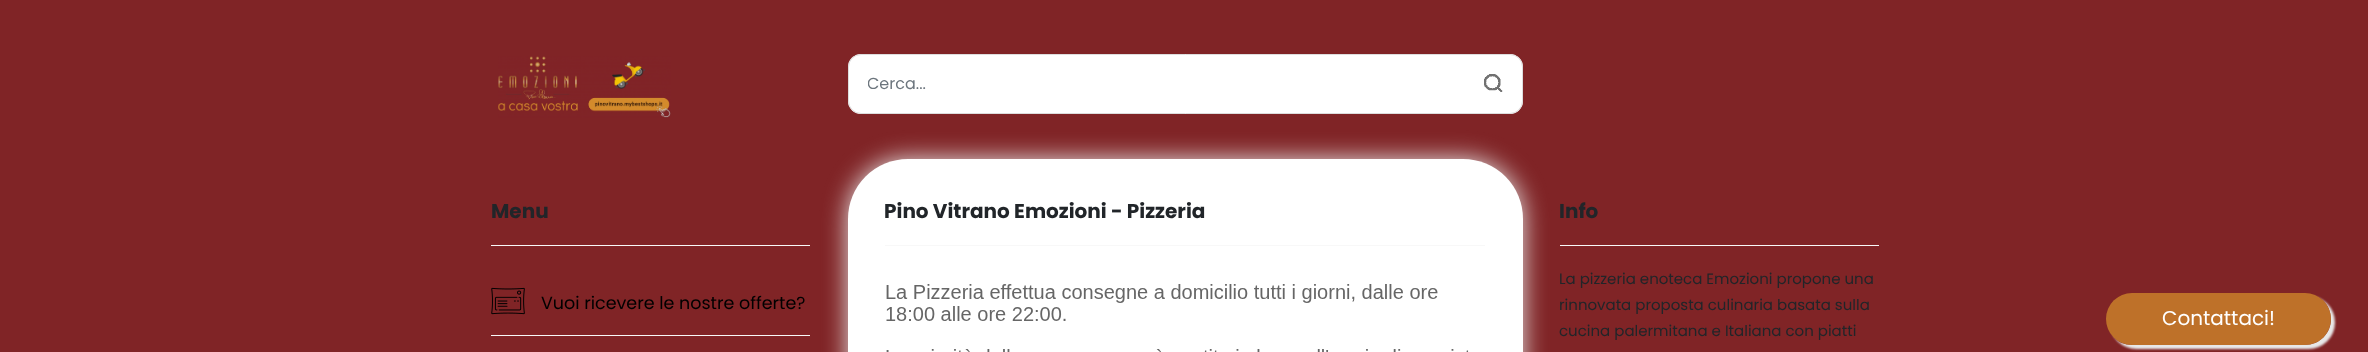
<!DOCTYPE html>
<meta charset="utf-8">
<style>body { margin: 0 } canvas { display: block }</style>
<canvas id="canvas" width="2368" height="352"></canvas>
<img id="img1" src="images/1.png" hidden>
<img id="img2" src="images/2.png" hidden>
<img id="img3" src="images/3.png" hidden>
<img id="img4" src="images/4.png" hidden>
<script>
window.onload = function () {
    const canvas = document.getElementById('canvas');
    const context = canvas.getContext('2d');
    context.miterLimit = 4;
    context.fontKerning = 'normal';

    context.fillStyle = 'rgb(128, 36, 38)';
    context.fillRect(0, 0, 2368, 352);
    context.drawImage(document.getElementById('img1'), 498, 56, 173, 62);
    context.fillStyle = 'rgb(255, 255, 255)';
    context.beginPath();
    context.roundRect(848, 54, 675, 60, 13);
    context.fill();
    context.drawImage(document.getElementById('img2'), 1484, 74, 19, 18);
    context.beginPath();
    context.roundRect(848.5, 54.5, 674, 59, 12.5);
    context.strokeStyle = 'rgb(221, 221, 221)';
    context.stroke();
    context.fillStyle = 'rgb(248, 248, 248)';
    context.fillRect(491, 245, 319, 1);
    context.fillRect(491, 335, 319, 1);
    context.drawImage(document.getElementById('img3'), 491, 287, 34, 28);
    context.fillStyle = 'rgb(231, 230, 230)';
    context.filter = 'blur(12.5px)';
    context.beginPath();
    context.roundRect(848, 159, 675, 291, 60);
    context.fill();
    context.filter = 'none';
    context.fillStyle = 'rgb(255, 255, 255)';
    context.beginPath();
    context.roundRect(848, 159, 675, 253, 60);
    context.fill();
    context.fillStyle = 'rgb(248, 248, 248)';
    context.fillRect(885, 245, 600, 1);
    context.drawImage(document.getElementById('img4'), 886, 284, 583, 68);
    context.fillRect(1560, 245, 319, 1);
    context.save();
    context.beginPath();
    context.moveTo(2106, 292);
    context.lineTo(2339, 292);
    context.lineTo(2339, 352);
    context.lineTo(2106, 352);
    context.closePath();
    context.moveTo(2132, 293);
    context.lineTo(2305, 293);
    context.bezierCurveTo(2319.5, 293, 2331, 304.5, 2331, 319);
    context.bezierCurveTo(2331, 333.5, 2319.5, 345, 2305, 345);
    context.lineTo(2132, 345);
    context.bezierCurveTo(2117.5, 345, 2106, 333.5, 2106, 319);
    context.bezierCurveTo(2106, 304.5, 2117.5, 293, 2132, 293);
    context.closePath();
    context.clip('evenodd');
    context.fillStyle = 'rgb(232, 232, 232)';
    context.filter = 'blur(1px)';
    context.beginPath();
    context.roundRect(2110, 296, 225, 53, 26.5);
    context.fill();
    context.filter = 'none';
    context.restore();
    context.fillStyle = 'rgba(211, 139, 43, 0.75)';
    context.beginPath();
    context.roundRect(2106, 293, 225, 52, 26);
    context.fill();
    context.save();
    context.beginPath();
    context.rect(868, 71, 635, 25);
    context.clip();
    context.font = '16px Poppins';
    context.fillStyle = 'rgb(108, 117, 125)';
    context.fillText('Cerca...', 867, 89);
    context.restore();
    context.font = 'bold 20px Poppins';
    context.fillStyle = 'rgb(33, 37, 41)';
    context.fillText('Menu', 491, 218);
    context.font = '17.5px Poppins';
    context.fillStyle = 'rgb(0, 0, 0)';
    context.fillText('Vuoi ricevere le nostre offerte?', 541, 309);
    context.font = 'bold 20px Poppins';
    context.fillStyle = 'rgb(33, 37, 41)';
    context.fillText('Pino Vitrano Emozioni - Pizzeria', 884, 218);
    context.fillText('Info', 1559, 218);
    context.font = '15px Poppins';
    context.fillText('La pizzeria enoteca Emozioni propone una', 1559, 284);
    context.fillText('rinnovata proposta culinaria basata sulla', 1559, 310);
    context.fillText('cucina palermitana e Italiana con piatti', 1559, 336);
    context.font = '20px Poppins';
    context.fillStyle = 'rgb(255, 255, 255)';
    context.fillText('Contattaci!', 2162, 325);
};
</script>
